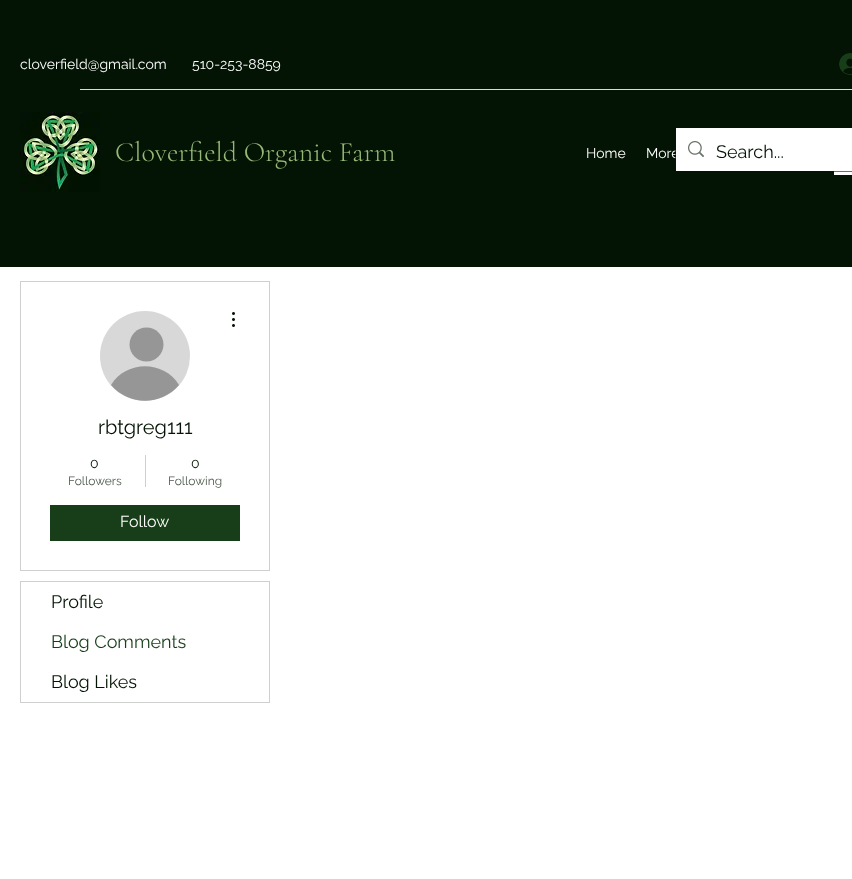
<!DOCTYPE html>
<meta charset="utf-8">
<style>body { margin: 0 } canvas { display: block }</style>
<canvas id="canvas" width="852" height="879"></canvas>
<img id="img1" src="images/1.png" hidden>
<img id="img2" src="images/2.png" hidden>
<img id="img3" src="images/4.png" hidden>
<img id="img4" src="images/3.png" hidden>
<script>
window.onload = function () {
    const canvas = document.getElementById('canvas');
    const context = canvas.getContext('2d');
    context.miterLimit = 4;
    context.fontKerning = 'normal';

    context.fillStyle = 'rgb(255, 255, 255)';
    context.fillRect(0, 0, 852, 879);
    context.fillStyle = 'rgb(4, 20, 4)';
    context.fillRect(0, 0, 852, 267);
    context.drawImage(document.getElementById('img1'), 839, 53, 13, 22);
    context.fillStyle = 'rgb(217, 220, 217)';
    context.fillRect(80, 89, 772, 1);
    context.drawImage(document.getElementById('img2'), 20, 112, 80, 80);
    context.fillStyle = 'rgb(255, 255, 255)';
    context.fillRect(834, 171, 18, 4);
    context.strokeStyle = 'rgb(205, 208, 205)';
    context.strokeRect(20.5, 281.5, 249, 289);
    context.fillStyle = 'rgb(216, 216, 216)';
    context.beginPath();
    context.arc(145, 356, 45, 0, 2 * Math.PI);
    context.fill();
    context.fillStyle = 'rgb(150, 150, 150)';
    context.beginPath();
    context.arc(146.5, 344.5, 17, 0, 2 * Math.PI);
    context.fill();
    context.beginPath();
    context.moveTo(179, 385);
    context.bezierCurveTo(161, 406, 129, 406, 111, 385);
    context.bezierCurveTo(126, 360, 164, 360, 179, 385);
    context.closePath();
    context.fill();
    context.drawImage(document.getElementById('img3'), 232, 312, 3, 15);
    context.fillStyle = 'rgb(205, 208, 205)';
    context.fillRect(145, 455, 1, 32);
    context.fillStyle = 'rgb(23, 62, 25)';
    context.fillRect(50, 505, 190, 36);
    context.strokeRect(20.5, 581.5, 249, 121);
    context.font = '14px Raleway';
    context.fillStyle = 'rgb(255, 255, 255)';
    context.fillText('cloverfield@gmail.com', 20, 69);
    context.fillText('510-253-8859', 192, 69);
    context.font = '300 28px Cormorant Garamond';
    context.fillStyle = 'rgb(151, 185, 120)';
    context.fillText('Cloverfield Organic Farm', 115, 161);
    context.font = '14px Raleway';
    context.fillStyle = 'rgb(255, 255, 255)';
    context.fillText('Home', 586, 158);
    context.fillText('More', 646, 158);
    context.strokeStyle = 'rgba(4, 20, 4, 0.6)';
    context.strokeRect(675.5, 127.5, 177, 44);
    context.fillRect(676, 128, 176, 43);
    context.drawImage(document.getElementById('img4'), 688, 141, 16, 16);
    context.font = '18px Raleway';
    context.fillStyle = 'rgb(4, 20, 4)';
    context.fillText('Search...', 716, 158);
    context.font = '20px Raleway';
    context.fillText('rbtgreg111', 98, 434);
    context.font = '14px Raleway';
    context.fillText('0', 90, 468);
    context.font = '12px Raleway';
    context.fillStyle = 'rgb(79, 91, 79)';
    context.fillText('Followers', 68, 485);
    context.font = '14px Raleway';
    context.fillStyle = 'rgb(4, 20, 4)';
    context.fillText('0', 191, 468);
    context.font = '12px Raleway';
    context.fillStyle = 'rgb(79, 91, 79)';
    context.fillText('Following', 168, 485);
    context.font = '16px Raleway';
    context.fillStyle = 'rgb(255, 255, 255)';
    context.fillText('Follow', 120, 527);
    context.font = '18px Raleway';
    context.fillStyle = 'rgb(4, 20, 4)';
    context.fillText('Profile', 51, 608);
    context.fillStyle = 'rgb(23, 62, 25)';
    context.fillText('Blog Comments', 51, 648);
    context.fillStyle = 'rgb(4, 20, 4)';
    context.fillText('Blog Likes', 51, 688);
};
</script>
